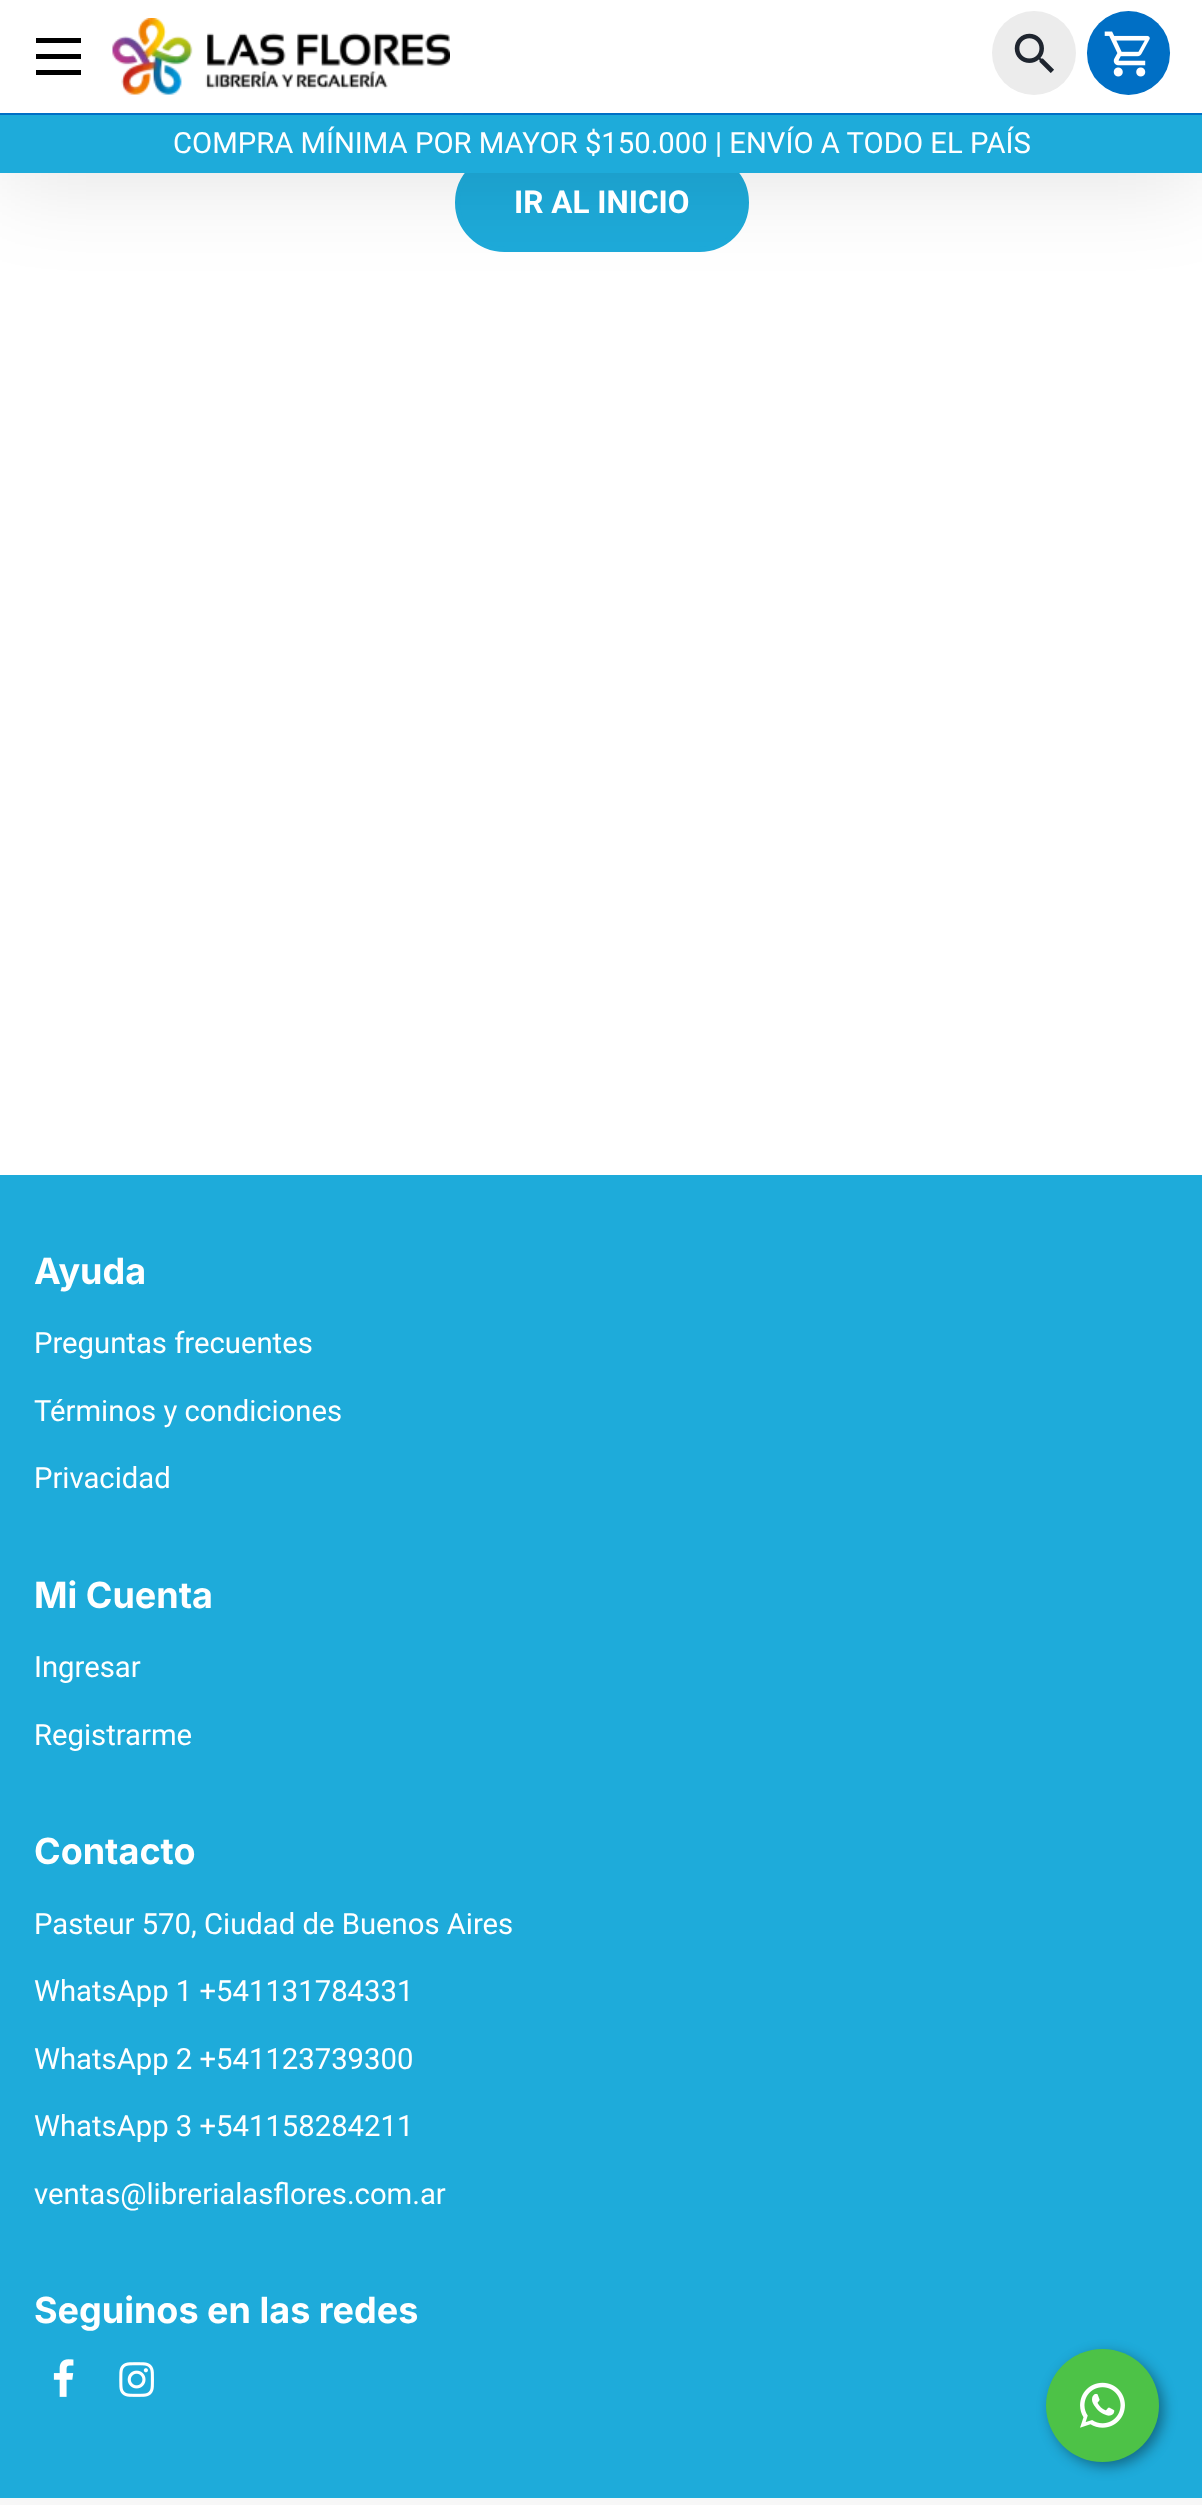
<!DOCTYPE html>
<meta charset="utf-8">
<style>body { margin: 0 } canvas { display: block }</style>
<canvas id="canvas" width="1202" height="2505"></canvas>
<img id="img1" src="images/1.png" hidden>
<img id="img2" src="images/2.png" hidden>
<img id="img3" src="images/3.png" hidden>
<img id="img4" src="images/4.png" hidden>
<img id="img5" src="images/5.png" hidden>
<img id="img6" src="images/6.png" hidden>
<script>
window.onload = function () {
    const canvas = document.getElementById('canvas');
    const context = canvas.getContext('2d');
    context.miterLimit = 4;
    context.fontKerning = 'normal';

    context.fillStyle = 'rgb(255, 255, 255)';
    context.fillRect(0, 0, 1202, 2505);
    context.fillStyle = 'rgb(30, 171, 218)';
    context.beginPath();
    context.roundRect(457.5, 155.5, 289, 94, 47);
    context.fill();
    context.strokeStyle = 'rgb(30, 171, 218)';
    context.lineWidth = 5;
    context.stroke();
    context.fillStyle = 'rgba(0, 0, 0, 0.1)';
    context.filter = 'blur(45px)';
    context.beginPath();
    context.rect(0, 11, 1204, 174);
    context.fill();
    context.filter = 'none';
    context.fillStyle = 'rgb(255, 255, 255)';
    context.fillRect(0, 0, 1202, 113);
    context.fillStyle = 'rgb(0, 111, 197)';
    context.fillRect(0, 113, 1202, 2);
    context.fillStyle = 'rgb(0, 0, 0)';
    context.fillRect(36, 54, 45, 5);
    context.fillRect(36, 38, 45, 5);
    context.fillRect(36, 70, 45, 5);
    context.drawImage(document.getElementById('img1'), 112, 18, 338, 77);
    context.fillStyle = 'rgb(236, 236, 236)';
    context.beginPath();
    context.arc(1034, 53, 42, 0, 2 * Math.PI);
    context.fill();
    context.drawImage(document.getElementById('img2'), 1014, 33, 40, 40);
    context.fillStyle = 'rgb(0, 111, 197)';
    context.beginPath();
    context.roundRect(1087, 11, 83, 84, 41.5);
    context.fill();
    context.drawImage(document.getElementById('img3'), 1104, 31, 46, 46);
    context.fillStyle = 'rgb(30, 171, 218)';
    context.fillRect(0, 115, 1202, 58);
    context.fillRect(0, 1175, 1202, 1323);
    context.drawImage(document.getElementById('img4'), 53, 2359, 21, 38);
    context.drawImage(document.getElementById('img5'), 119, 2362, 35, 35);
    context.fillStyle = 'rgb(247, 247, 247)';
    context.fillRect(0, 2498, 1202, 7);
    context.fillStyle = 'rgba(0, 0, 0, 0.4)';
    context.filter = 'blur(7px)';
    context.beginPath();
    context.roundRect(1051, 2354, 112, 112, 56);
    context.fill();
    context.filter = 'none';
    context.fillStyle = 'rgb(77, 194, 71)';
    context.beginPath();
    context.arc(1102.5, 2405.5, 56.5, 0, 2 * Math.PI);
    context.fill();
    context.drawImage(document.getElementById('img6'), 1080, 2382, 45, 46);
    context.font = '29.25px Roboto';
    context.fillStyle = 'rgb(255, 255, 255)';
    context.fillText('COMPRA MÍNIMA POR MAYOR $150.000 | ENVÍO A TODO EL PAÍS', 173, 153);
    context.font = 'bold 31.5px Roboto';
    context.fillText('IR AL INICIO', 514, 213);
    context.font = 'bold 36px Inter';
    context.fillText('Ayuda', 34, 1284);
    context.font = '29.25px Roboto';
    context.fillText('Preguntas frecuentes', 34, 1353);
    context.fillText('Términos y condiciones', 34, 1421);
    context.fillText('Privacidad', 34, 1488);
    context.font = 'bold 36px Inter';
    context.fillText('Mi Cuenta', 34, 1608);
    context.font = '29.25px Roboto';
    context.fillText('Ingresar', 34, 1677);
    context.fillText('Registrarme', 34, 1745);
    context.font = 'bold 36px Inter';
    context.fillText('Contacto', 34, 1864);
    context.font = '29.25px Roboto';
    context.fillText('Pasteur 570, Ciudad de Buenos Aires', 34, 1934);
    context.fillText('WhatsApp 1 +541131784331', 34, 2001);
    context.fillText('WhatsApp 2 +541123739300', 34, 2069);
    context.fillText('WhatsApp 3 +541158284211', 34, 2136);
    context.fillText('ventas@librerialasflores.com.ar', 34, 2204);
    context.font = 'bold 36px Inter';
    context.fillText('Seguinos en las redes', 34, 2323);
};
</script>
